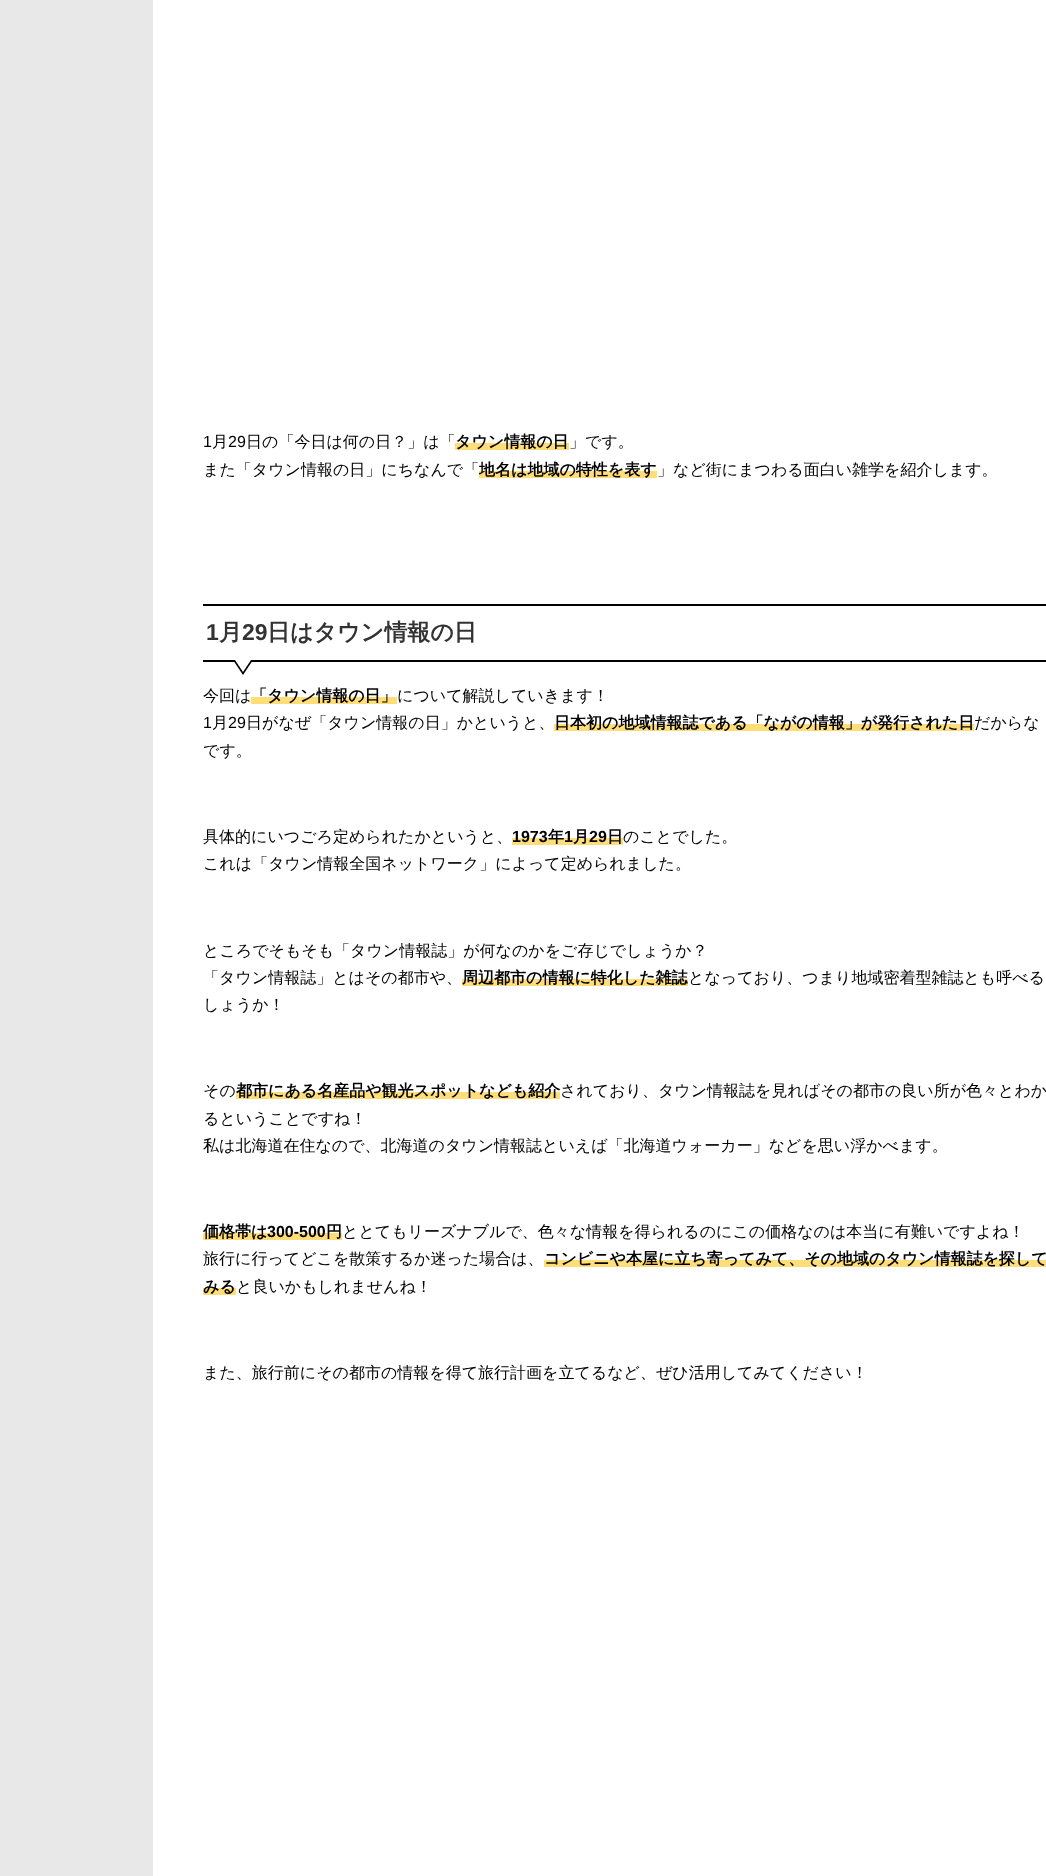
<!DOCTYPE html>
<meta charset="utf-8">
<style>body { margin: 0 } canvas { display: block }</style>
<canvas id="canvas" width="1046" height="1876"></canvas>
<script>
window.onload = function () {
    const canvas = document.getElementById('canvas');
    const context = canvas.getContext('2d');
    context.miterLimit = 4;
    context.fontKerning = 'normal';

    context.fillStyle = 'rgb(232, 232, 232)';
    context.fillRect(0, 0, 1046, 1876);
    context.fillStyle = 'rgb(255, 255, 255)';
    context.fillRect(153, 0, 893, 1876);
    context.fillStyle = 'rgb(255, 221, 119)';
    context.fillRect(455, 443, 114, 7);
    context.fillRect(479, 471, 178, 7);
    context.fillStyle = 'rgb(0, 0, 0)';
    context.fillRect(203, 604, 843, 2);
    context.fillRect(203, 660, 843, 2);
    context.beginPath();
    context.moveTo(233, 660);
    context.lineTo(253, 660);
    context.lineTo(243, 675);
    context.closePath();
    context.fill();
    context.fillStyle = 'rgb(255, 255, 255)';
    context.beginPath();
    context.moveTo(233, 657);
    context.lineTo(253, 657);
    context.lineTo(243, 672);
    context.closePath();
    context.fill();
    context.fillStyle = 'rgb(255, 221, 119)';
    context.fillRect(251, 697, 146, 7);
    context.fillRect(554, 724, 420, 7);
    context.fillRect(512, 838, 111, 7);
    context.fillRect(462, 979, 226, 7);
    context.fillRect(236, 1092, 324, 7);
    context.fillRect(203, 1233, 139, 7);
    context.fillRect(544, 1260, 502, 7);
    context.fillRect(203, 1288, 33, 7);
    context.font = '16px Liberation Sans';
    context.fillStyle = 'rgb(0, 0, 0)';
    context.fillText('1', 203, 447);
    context.font = '500 16px WenQuanYi Zen Hei';
    context.fillText('月', 212, 447);
    context.font = '16px Liberation Sans';
    context.fillText('29', 228, 447);
    context.font = '500 16px WenQuanYi Zen Hei';
    context.fillText('日の「今日は何の日？」は「', 246, 447);
    context.font = 'bold 16px WenQuanYi Zen Hei';
    context.fillText('タウン情報の日', 455, 447);
    context.font = '500 16px WenQuanYi Zen Hei';
    context.fillText('」です。', 569, 447);
    context.fillText('また「タウン情報の日」にちなんで「', 203, 475);
    context.font = 'bold 16px WenQuanYi Zen Hei';
    context.fillText('地名は地域の特性を表す', 479, 475);
    context.font = '500 16px WenQuanYi Zen Hei';
    context.fillText('」など街にまつわる面白い雑学を紹介します。', 657, 475);
    context.font = 'bold 23px Liberation Sans';
    context.fillStyle = 'rgb(51, 51, 51)';
    context.fillText('1', 206, 640);
    context.font = 'bold 23px WenQuanYi Zen Hei';
    context.fillText('月', 219, 640);
    context.font = 'bold 23px Liberation Sans';
    context.fillText('29', 242, 640);
    context.font = 'bold 23px WenQuanYi Zen Hei';
    context.fillText('日はタウン情報の日', 267, 640);
    context.font = '500 16px WenQuanYi Zen Hei';
    context.fillStyle = 'rgb(0, 0, 0)';
    context.fillText('今回は', 203, 701);
    context.font = 'bold 16px WenQuanYi Zen Hei';
    context.fillText('「タウン情報の日」', 251, 701);
    context.font = '500 16px WenQuanYi Zen Hei';
    context.fillText('について解説していきます！', 397, 701);
    context.font = '16px Liberation Sans';
    context.fillText('1', 203, 728);
    context.font = '500 16px WenQuanYi Zen Hei';
    context.fillText('月', 212, 728);
    context.font = '16px Liberation Sans';
    context.fillText('29', 228, 728);
    context.font = '500 16px WenQuanYi Zen Hei';
    context.fillText('日がなぜ「タウン情報の日」かというと、', 246, 728);
    context.font = 'bold 16px WenQuanYi Zen Hei';
    context.fillText('日本初の地域情報誌である「ながの情報」が発行された日', 554, 728);
    context.font = '500 16px WenQuanYi Zen Hei';
    context.fillText('だからな', 974, 728);
    context.fillText('です。', 203, 756);
    context.fillText('具体的にいつごろ定められたかというと、', 203, 842);
    context.font = 'bold 16px Liberation Sans';
    context.fillText('1973', 512, 842);
    context.font = 'bold 16px WenQuanYi Zen Hei';
    context.fillText('年', 548, 842);
    context.font = 'bold 16px Liberation Sans';
    context.fillText('1', 564, 842);
    context.font = 'bold 16px WenQuanYi Zen Hei';
    context.fillText('月', 573, 842);
    context.font = 'bold 16px Liberation Sans';
    context.fillText('29', 589, 842);
    context.font = 'bold 16px WenQuanYi Zen Hei';
    context.fillText('日', 607, 842);
    context.font = '500 16px WenQuanYi Zen Hei';
    context.fillText('のことでした。', 623, 842);
    context.fillText('これは「タウン情報全国ネットワーク」によって定められました。', 203, 869);
    context.fillText('ところでそもそも「タウン情報誌」が何なのかをご存じでしょうか？', 203, 956);
    context.fillText('「タウン情報誌」とはその都市や、', 203, 983);
    context.font = 'bold 16px WenQuanYi Zen Hei';
    context.fillText('周辺都市の情報に特化した雑誌', 462, 983);
    context.font = '500 16px WenQuanYi Zen Hei';
    context.fillText('となっており、つまり地域密着型雑誌とも呼べる', 688, 983);
    context.fillText('しょうか！', 203, 1010);
    context.fillText('その', 203, 1096);
    context.font = 'bold 16px WenQuanYi Zen Hei';
    context.fillText('都市にある名産品や観光スポットなども紹介', 236, 1096);
    context.font = '500 16px WenQuanYi Zen Hei';
    context.fillText('されており、タウン情報誌を見ればその都市の良い所が色々とわか', 560, 1096);
    context.fillText('るということですね！', 203, 1124);
    context.fillText('私は北海道在住なので、北海道のタウン情報誌といえば「北海道ウォーカー」などを思い浮かべます。', 203, 1151);
    context.font = 'bold 16px WenQuanYi Zen Hei';
    context.fillText('価格帯は', 203, 1237);
    context.font = 'bold 16px Liberation Sans';
    context.fillText('300-500', 267, 1237);
    context.font = 'bold 16px WenQuanYi Zen Hei';
    context.fillText('円', 326, 1237);
    context.font = '500 16px WenQuanYi Zen Hei';
    context.fillText('ととてもリーズナブルで、色々な情報を得られるのにこの価格なのは本当に有難いですよね！', 342, 1237);
    context.fillText('旅行に行ってどこを散策するか迷った場合は、', 203, 1264);
    context.font = 'bold 16px WenQuanYi Zen Hei';
    context.fillText('コンビニや本屋に立ち寄ってみて、その地域のタウン情報誌を探して', 544, 1264);
    context.fillText('みる', 203, 1292);
    context.font = '500 16px WenQuanYi Zen Hei';
    context.fillText('と良いかもしれませんね！', 236, 1292);
    context.fillText('また、旅行前にその都市の情報を得て旅行計画を立てるなど、ぜひ活用してみてください！', 203, 1378);
};
</script>
